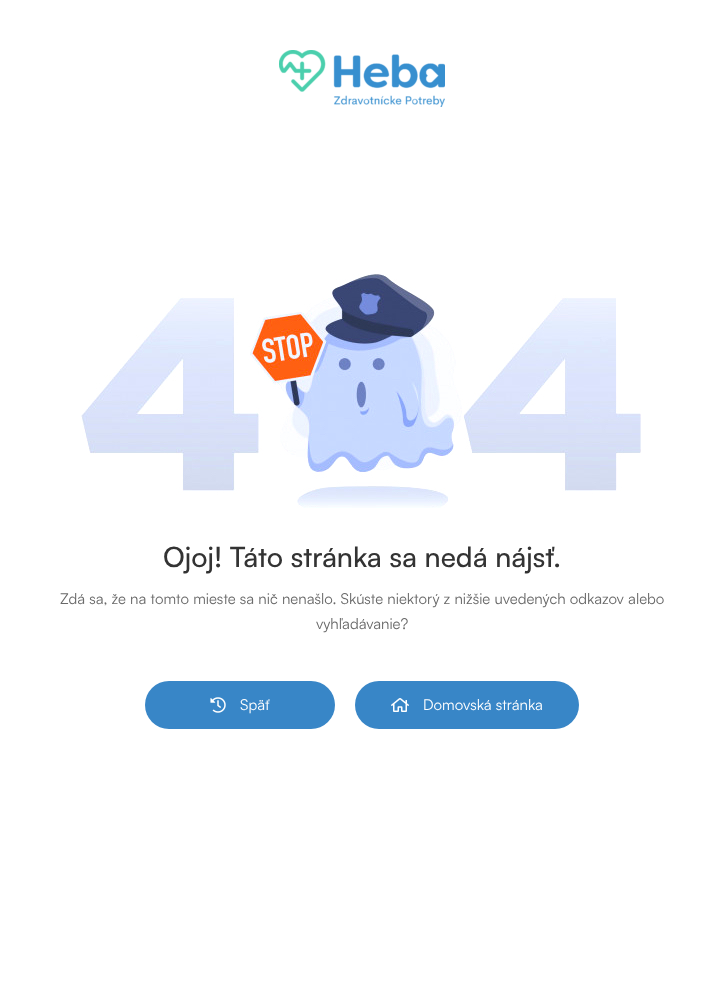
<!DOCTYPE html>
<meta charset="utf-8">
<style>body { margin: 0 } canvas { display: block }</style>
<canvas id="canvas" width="724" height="994"></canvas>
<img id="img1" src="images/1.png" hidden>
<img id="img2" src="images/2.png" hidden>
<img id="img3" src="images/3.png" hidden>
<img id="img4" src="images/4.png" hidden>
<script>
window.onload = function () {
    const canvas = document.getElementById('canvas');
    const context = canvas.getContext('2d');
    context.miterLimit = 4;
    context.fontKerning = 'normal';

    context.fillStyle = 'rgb(255, 255, 255)';
    context.fillRect(0, 0, 724, 994);
    context.drawImage(document.getElementById('img1'), 279, 50, 166, 57);
    context.drawImage(document.getElementById('img2'), 81, 274, 560, 234);
    context.fillStyle = 'rgb(56, 134, 199)';
    context.beginPath();
    context.roundRect(145, 681, 190, 48, 24);
    context.fill();
    context.drawImage(document.getElementById('img3'), 210, 697, 16, 16);
    context.beginPath();
    context.roundRect(355, 681, 224, 48, 24);
    context.fill();
    context.drawImage(document.getElementById('img4'), 391, 698, 18, 14);
    context.font = '500 28px Satoshi';
    context.fillStyle = 'rgb(51, 51, 51)';
    context.fillText('Ojoj! Táto stránka sa nedá nájsť.', 163, 567);
    context.font = '15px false';
    context.fillStyle = 'rgb(105, 105, 105)';
    context.fillText('Zdá sa, že na tomto mieste sa nič nenašlo. Skúste niektorý z nižšie uvedených odkazov alebo', 60, 604);
    context.fillText('vyhľadávanie?', 316, 629);
    context.fillStyle = 'rgb(255, 255, 255)';
    context.fillText('Späť', 240, 710);
    context.fillText('Domovská stránka', 423, 710);
};
</script>
